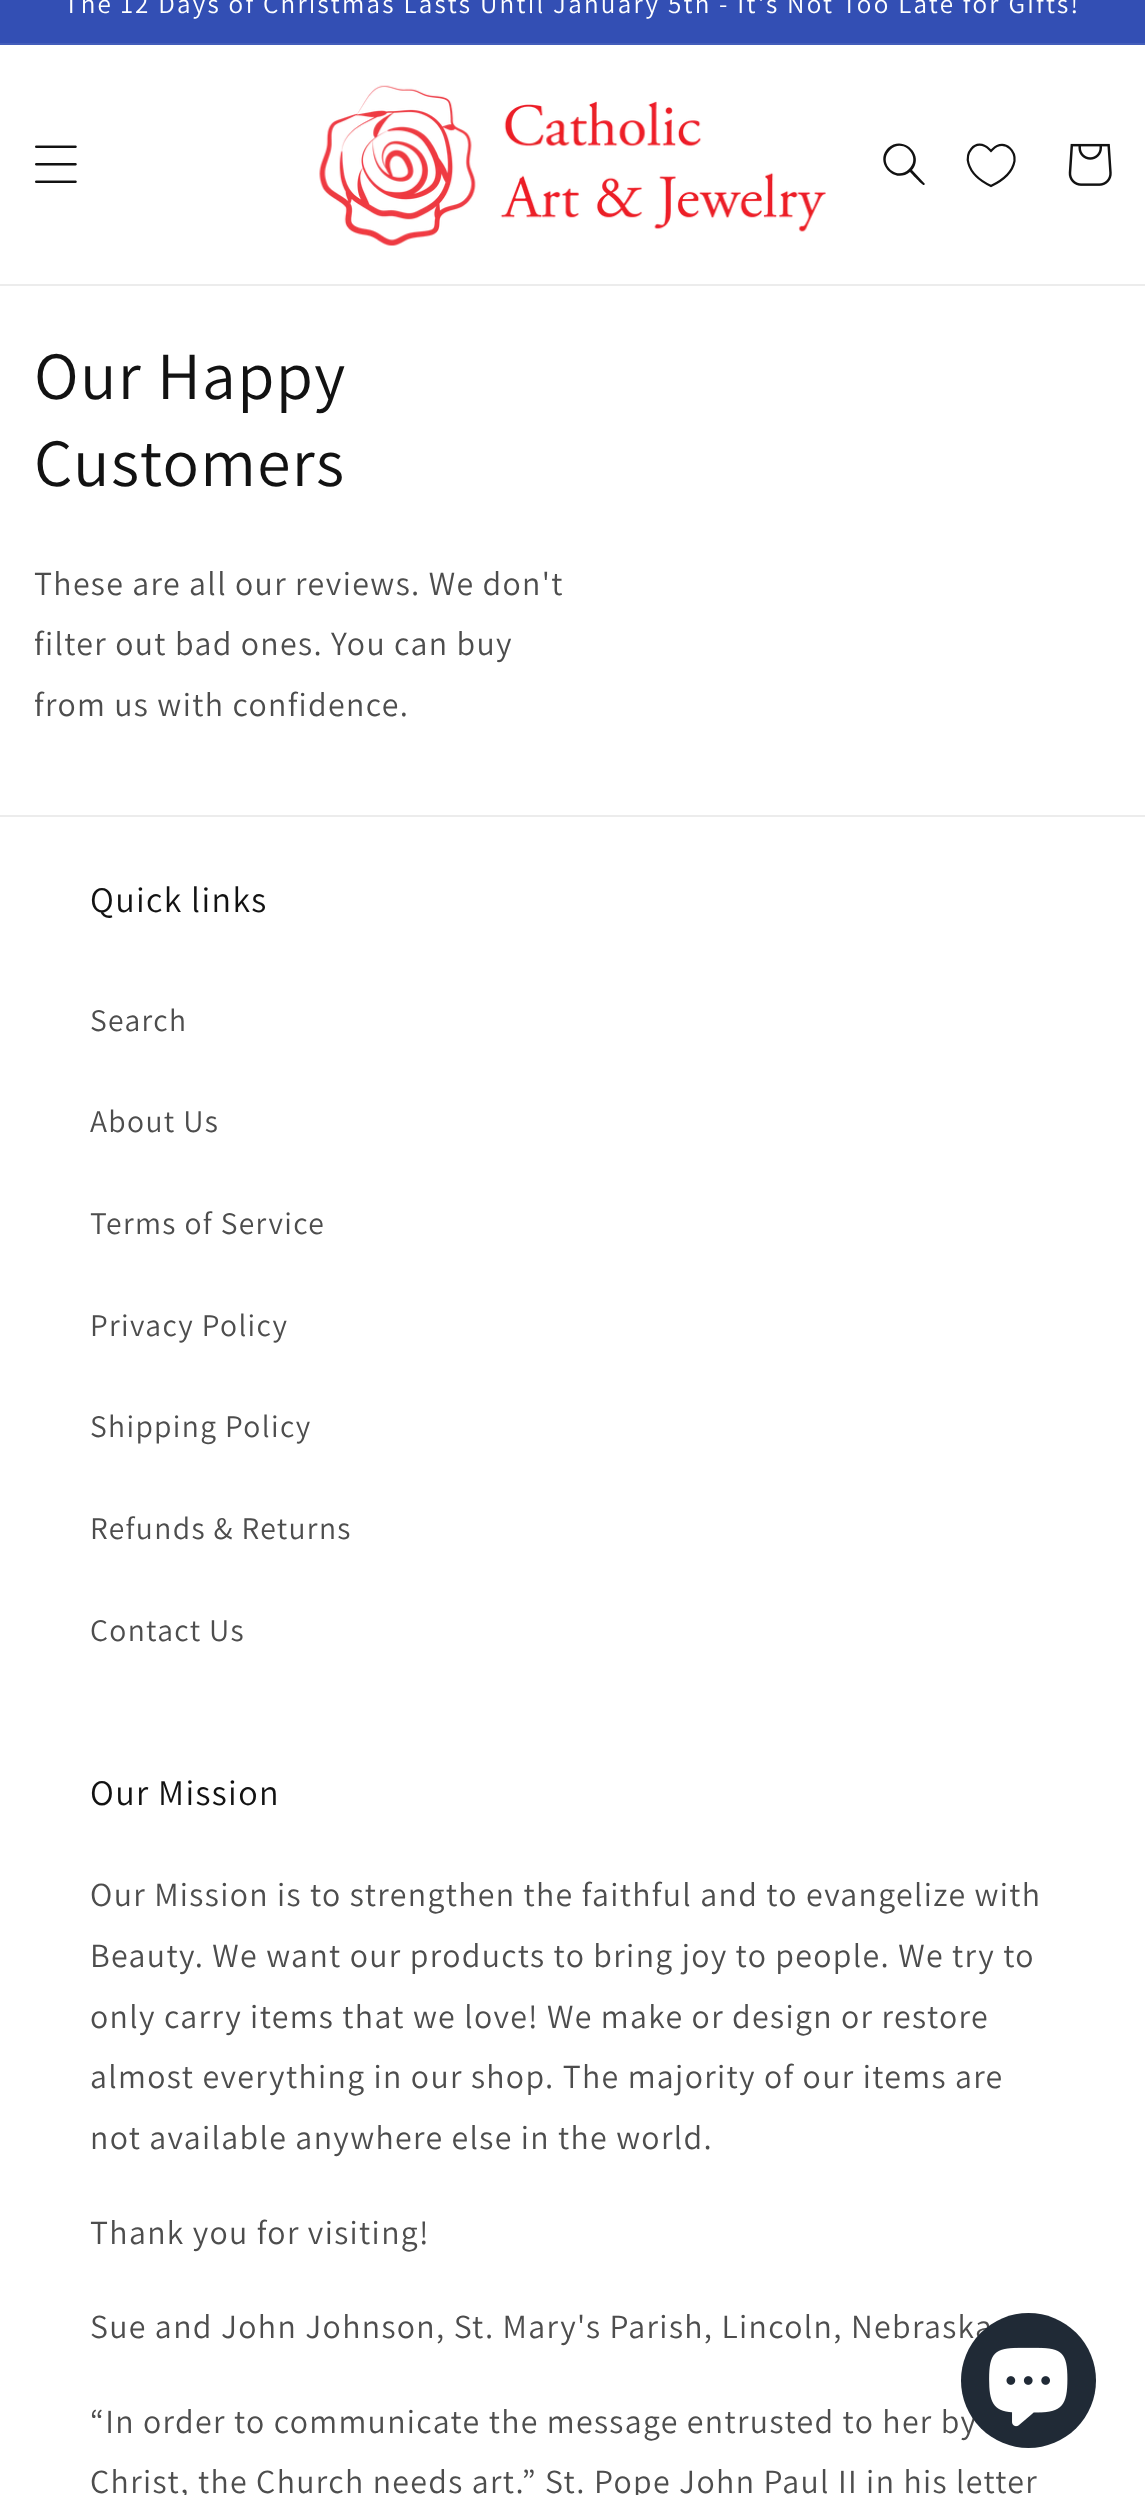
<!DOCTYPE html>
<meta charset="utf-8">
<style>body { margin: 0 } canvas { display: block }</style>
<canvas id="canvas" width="1145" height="2495"></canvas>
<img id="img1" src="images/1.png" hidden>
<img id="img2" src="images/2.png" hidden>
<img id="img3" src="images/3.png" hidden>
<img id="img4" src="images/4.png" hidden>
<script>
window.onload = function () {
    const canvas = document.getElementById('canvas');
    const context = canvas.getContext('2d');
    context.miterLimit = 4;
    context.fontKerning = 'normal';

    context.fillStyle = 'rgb(255, 255, 255)';
    context.fillRect(0, 0, 1145, 2495);
    context.fillStyle = 'rgb(51, 79, 180)';
    context.fillRect(0, 0, 1145, 43);
    context.fillStyle = 'rgb(67, 93, 186)';
    context.fillRect(0, 43, 1145, 2);
    context.fillStyle = 'rgb(236, 236, 236)';
    context.fillRect(0, 284, 1145, 2);
    context.drawImage(document.getElementById('img1'), 35, 145, 42, 38);
    context.drawImage(document.getElementById('img2'), 319, 85, 507, 161);
    context.fillStyle = 'rgb(18, 18, 18)';
    context.beginPath();
    context.moveTo(909, 169);
    context.bezierCurveTo(897, 182, 877, 163, 890, 150);
    context.bezierCurveTo(903, 137, 922, 157, 909, 169);
    context.closePath();
    context.moveTo(910, 172);
    context.bezierCurveTo(894, 185, 874, 162, 888, 148);
    context.bezierCurveTo(903, 134, 925, 155, 912, 170);
    context.lineTo(925, 184);
    context.lineTo(924, 185);
    context.bezierCurveTo(923, 186, 912, 174, 910, 172);
    context.closePath();
    context.fill('evenodd');
    context.beginPath();
    context.moveTo(991, 186);
    context.bezierCurveTo(981.5, 181.5, 971.5, 174, 968.5, 163.5);
    context.bezierCurveTo(965.5, 153, 973.5, 141, 985, 146);
    context.bezierCurveTo(987.5, 147, 989, 149, 991, 151);
    context.bezierCurveTo(993, 149, 994.5, 147, 997, 146);
    context.bezierCurveTo(1007, 142, 1015.5, 151, 1014.5, 161);
    context.bezierCurveTo(1012.5, 172.5, 1001.5, 181, 991, 186);
    context.closePath();
    context.strokeStyle = 'rgb(18, 18, 18)';
    context.lineWidth = 2.2;
    context.stroke();
    context.drawImage(document.getElementById('img3'), 1068, 143, 44, 43);
    context.fillStyle = 'rgb(236, 236, 236)';
    context.fillRect(0, 815, 1145, 2);
    context.letterSpacing = '2.25px';
    context.font = '27px Assistant';
    context.fillStyle = 'rgb(255, 255, 255)';
    context.fillText('The 12 Days of Christmas Lasts Until January 5th - It\'s Not Too Late for Gifts!', 64, 13);
    context.letterSpacing = '1.35px';
    context.font = '67.5px Assistant';
    context.fillStyle = 'rgb(18, 18, 18)';
    context.fillText('Our Happy', 34, 399);
    context.fillText('Customers', 34, 486);
    context.font = '33.75px Assistant';
    context.fillStyle = 'rgb(77, 77, 77)';
    context.fillText('These are all our reviews. We don\'t', 34, 595);
    context.fillText('filter out bad ones. You can buy', 34, 655);
    context.fillText('from us with confidence.', 34, 716);
    context.font = '36px Assistant';
    context.fillStyle = 'rgb(18, 18, 18)';
    context.fillText('Quick links', 90, 912);
    context.font = '31.5px Assistant';
    context.fillStyle = 'rgb(77, 77, 77)';
    context.fillText('Search', 90, 1031);
    context.fillText('About Us', 90, 1132);
    context.fillText('Terms of Service', 90, 1234);
    context.fillText('Privacy Policy', 90, 1336);
    context.fillText('Shipping Policy', 90, 1437);
    context.fillText('Refunds & Returns', 90, 1539);
    context.fillText('Contact Us', 90, 1641);
    context.font = '36px Assistant';
    context.fillStyle = 'rgb(18, 18, 18)';
    context.fillText('Our Mission', 90, 1805);
    context.font = '33.75px Assistant';
    context.fillStyle = 'rgb(77, 77, 77)';
    context.fillText('Our Mission is to strengthen the faithful and to evangelize with', 90, 1906);
    context.fillText('Beauty. We want our products to bring joy to people. We try to', 90, 1967);
    context.fillText('only carry items that we love! We make or design or restore', 90, 2028);
    context.fillText('almost everything in our shop. The majority of our items are', 90, 2088);
    context.fillText('not available anywhere else in the world.', 90, 2149);
    context.fillText('Thank you for visiting!', 90, 2244);
    context.fillText('Sue and John Johnson, St. Mary\'s Parish, Lincoln, Nebraska', 90, 2338);
    context.fillText('“In order to communicate the message entrusted to her by', 90, 2433);
    context.fillText('Christ, the Church needs art.” St. Pope John Paul II in his letter', 90, 2493);
    context.fillStyle = 'rgb(32, 42, 54)';
    context.beginPath();
    context.arc(1028.5, 2380.5, 67.5, 0, 2 * Math.PI);
    context.fill();
    context.drawImage(document.getElementById('img4'), 989, 2347, 79, 80);
};
</script>
